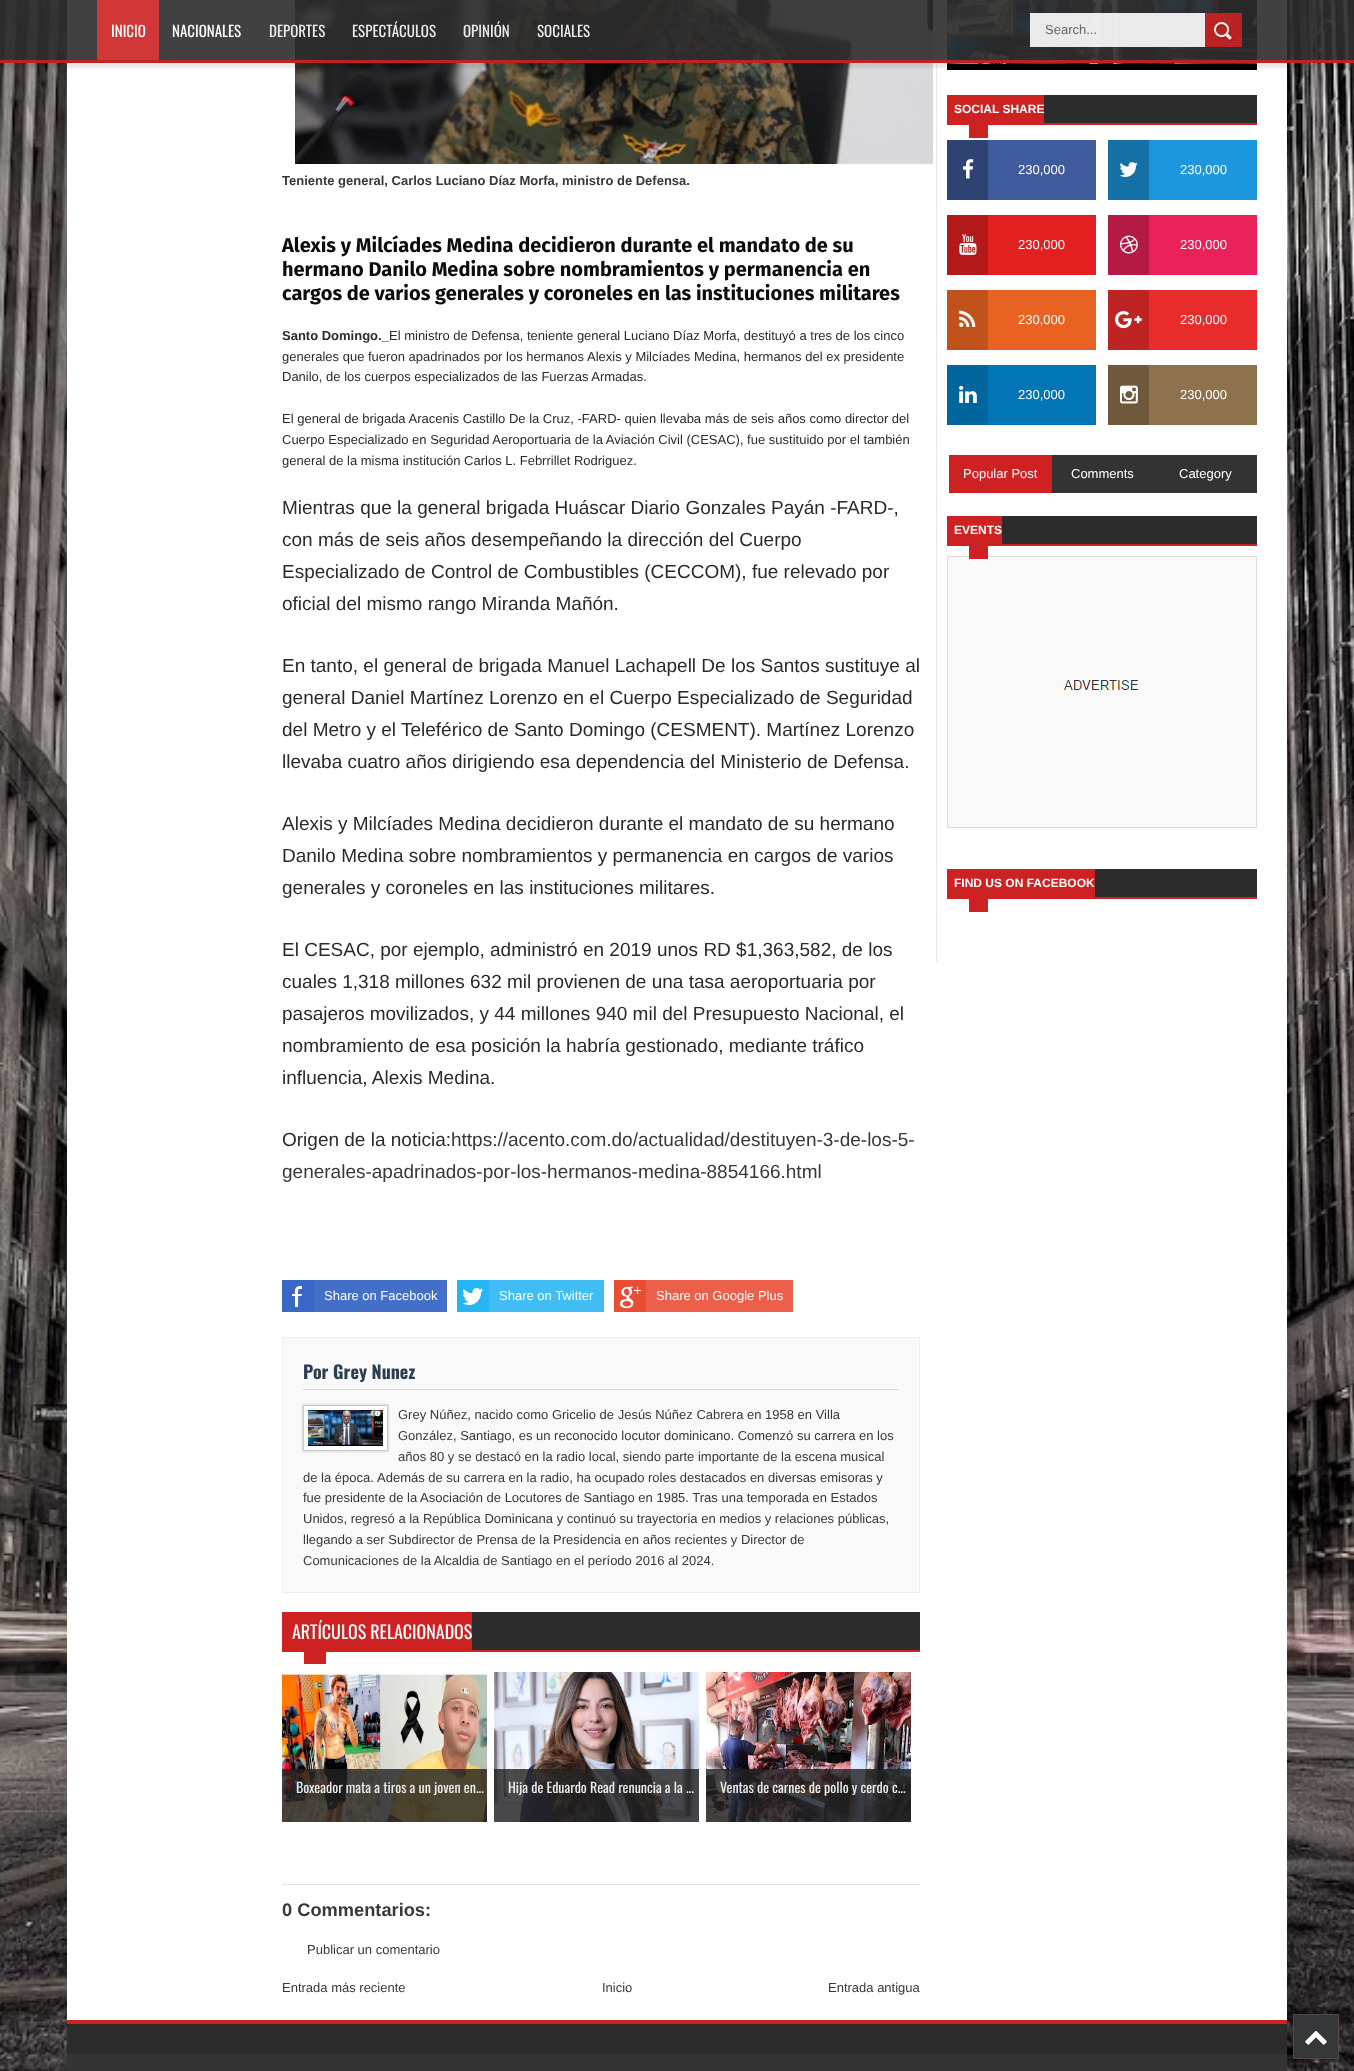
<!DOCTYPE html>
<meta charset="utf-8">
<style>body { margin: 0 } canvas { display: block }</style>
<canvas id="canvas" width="1354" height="2071"></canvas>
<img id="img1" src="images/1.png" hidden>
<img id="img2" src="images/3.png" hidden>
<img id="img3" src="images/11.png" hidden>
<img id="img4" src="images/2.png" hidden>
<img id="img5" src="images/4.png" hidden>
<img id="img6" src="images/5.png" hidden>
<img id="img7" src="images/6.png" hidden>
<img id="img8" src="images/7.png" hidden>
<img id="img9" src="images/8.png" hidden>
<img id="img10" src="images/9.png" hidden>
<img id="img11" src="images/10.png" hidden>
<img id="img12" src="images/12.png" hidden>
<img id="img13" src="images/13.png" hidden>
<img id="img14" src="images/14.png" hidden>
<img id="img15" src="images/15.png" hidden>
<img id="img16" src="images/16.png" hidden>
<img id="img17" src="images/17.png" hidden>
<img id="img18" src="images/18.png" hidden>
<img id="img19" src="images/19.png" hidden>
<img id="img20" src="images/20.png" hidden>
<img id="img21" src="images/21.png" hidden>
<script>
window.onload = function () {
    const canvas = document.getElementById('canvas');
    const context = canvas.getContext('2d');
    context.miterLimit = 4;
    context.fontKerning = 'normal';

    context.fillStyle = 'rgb(255, 255, 255)';
    context.fillRect(0, 0, 1354, 2071);
    context.drawImage(document.getElementById('img1'), 0, 0, 1354, 2071);
    context.fillStyle = 'rgba(80, 80, 80, 0.1)';
    context.filter = 'blur(2.5px)';
    context.beginPath();
    context.rect(67, -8, 1220, 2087);
    context.fill();
    context.filter = 'none';
    context.fillStyle = 'rgb(255, 255, 255)';
    context.fillRect(67, 0, 1220, 2020);
    context.drawImage(document.getElementById('img2'), 295, 0, 638, 164);
    context.fillStyle = 'rgb(234, 234, 234)';
    context.fillRect(936, 0, 1, 962);
    context.drawImage(document.getElementById('img3'), 947, 0, 310, 70);
    context.save();
    context.beginPath();
    context.rect(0, 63, 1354, 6);
    context.clip();
    context.fillStyle = 'rgba(0, 0, 0, 0.09)';
    context.filter = 'blur(1.5px)';
    context.beginPath();
    context.rect(0, 5, 1354, 63);
    context.fill();
    context.filter = 'none';
    context.restore();
    context.fillStyle = 'rgba(44, 44, 44, 0.9)';
    context.fillRect(0, 0, 1354, 63);
    context.fillStyle = 'rgba(205, 33, 34, 0.9)';
    context.fillRect(0, 60, 1354, 3);
    context.fillStyle = 'rgb(210, 55, 56)';
    context.fillRect(97, 0, 62, 60);
    context.fillStyle = 'rgba(255, 255, 255, 0.9)';
    context.fillRect(1030, 13, 175, 34);
    context.fillStyle = 'rgba(205, 33, 34, 0.9)';
    context.fillRect(1205, 13, 37, 34);
    context.drawImage(document.getElementById('img4'), 1214, 22, 20, 20);
    context.fillStyle = 'rgb(226, 226, 226)';
    context.fillRect(282, 1884, 638, 1);
    context.fillStyle = 'rgb(67, 111, 201)';
    context.fillRect(314, 1280, 133, 32);
    context.fillStyle = 'rgb(57, 103, 198)';
    context.fillRect(282, 1280, 32, 32);
    context.drawImage(document.getElementById('img5'), 292, 1286, 10, 21);
    context.fillStyle = 'rgb(64, 190, 244)';
    context.fillRect(489, 1280, 115, 32);
    context.fillStyle = 'rgb(38, 181, 242)';
    context.fillRect(457, 1280, 32, 32);
    context.drawImage(document.getElementById('img6'), 462, 1288, 21, 17);
    context.fillStyle = 'rgb(236, 95, 74)';
    context.fillRect(646, 1280, 147, 32);
    context.fillStyle = 'rgb(233, 77, 54)';
    context.fillRect(614, 1280, 32, 32);
    context.drawImage(document.getElementById('img7'), 619, 1286, 22, 23);
    context.fillStyle = 'rgb(249, 249, 249)';
    context.beginPath();
    context.rect(282.5, 1337.5, 637, 255);
    context.fill();
    context.strokeStyle = 'rgb(238, 238, 238)';
    context.stroke();
    context.fillStyle = 'rgb(215, 215, 215)';
    context.fillRect(303, 1389, 596, 1);
    context.fillStyle = 'rgb(181, 181, 181)';
    context.filter = 'blur(1.5px)';
    context.beginPath();
    context.rect(303, 1405, 85, 46);
    context.fill();
    context.filter = 'none';
    context.fillStyle = 'rgb(255, 255, 255)';
    context.beginPath();
    context.rect(303.5, 1405.5, 84, 45);
    context.fill();
    context.strokeStyle = 'rgb(204, 204, 204)';
    context.stroke();
    context.drawImage(document.getElementById('img8'), 308, 1410, 75, 36);
    context.fillStyle = 'rgb(44, 44, 44)';
    context.fillRect(472, 1612, 448, 38);
    context.fillStyle = 'rgb(205, 33, 34)';
    context.fillRect(472, 1650, 448, 2);
    context.fillRect(282, 1612, 190, 40);
    context.fillRect(304, 1652, 22, 12);
    context.drawImage(document.getElementById('img9'), 282, 1672, 205, 150);
    context.fillStyle = 'rgba(35, 35, 35, 0.81)';
    context.fillRect(282, 1769, 205, 53);
    context.drawImage(document.getElementById('img10'), 494, 1672, 205, 150);
    context.fillRect(494, 1769, 205, 53);
    context.drawImage(document.getElementById('img11'), 706, 1672, 205, 150);
    context.fillRect(706, 1769, 205, 53);
    context.fillStyle = 'rgb(44, 44, 44)';
    context.fillRect(1044, 95, 213, 28);
    context.fillStyle = 'rgb(205, 33, 34)';
    context.fillRect(1044, 123, 213, 2);
    context.fillRect(947, 95, 97, 30);
    context.fillRect(969, 125, 19, 13);
    context.fillStyle = 'rgb(63, 91, 155)';
    context.fillRect(988, 140, 108, 60);
    context.fillStyle = 'rgb(46, 67, 114)';
    context.fillRect(947, 140, 41, 60);
    context.drawImage(document.getElementById('img12'), 963, 159, 11, 20);
    context.fillStyle = 'rgb(28, 151, 222)';
    context.fillRect(1149, 140, 108, 60);
    context.fillStyle = 'rgb(21, 113, 165)';
    context.fillRect(1108, 140, 41, 60);
    context.drawImage(document.getElementById('img13'), 1119, 162, 19, 15);
    context.fillStyle = 'rgb(226, 32, 32)';
    context.fillRect(988, 215, 108, 60);
    context.fillStyle = 'rgb(179, 25, 25)';
    context.fillRect(947, 215, 41, 60);
    context.drawImage(document.getElementById('img14'), 959, 234, 18, 21);
    context.fillStyle = 'rgb(232, 33, 89)';
    context.fillRect(1149, 215, 108, 60);
    context.fillStyle = 'rgb(181, 26, 69)';
    context.fillRect(1108, 215, 41, 60);
    context.drawImage(document.getElementById('img15'), 1120, 235, 18, 19);
    context.fillStyle = 'rgb(232, 99, 33)';
    context.fillRect(988, 290, 108, 60);
    context.fillStyle = 'rgb(194, 82, 27)';
    context.fillRect(947, 290, 41, 60);
    context.drawImage(document.getElementById('img16'), 959, 310, 17, 17);
    context.fillStyle = 'rgb(232, 44, 44)';
    context.fillRect(1149, 290, 108, 60);
    context.fillStyle = 'rgb(191, 36, 36)';
    context.fillRect(1108, 290, 41, 60);
    context.drawImage(document.getElementById('img17'), 1115, 311, 27, 18);
    context.fillStyle = 'rgb(2, 117, 182)';
    context.fillRect(988, 365, 108, 60);
    context.fillStyle = 'rgb(2, 102, 158)';
    context.fillRect(947, 365, 41, 60);
    context.drawImage(document.getElementById('img18'), 959, 385, 18, 18);
    context.fillStyle = 'rgb(142, 113, 77)';
    context.fillRect(1149, 365, 108, 60);
    context.fillStyle = 'rgb(111, 88, 60)';
    context.fillRect(1108, 365, 41, 60);
    context.drawImage(document.getElementById('img19'), 1120, 385, 18, 19);
    context.fillStyle = 'rgb(205, 33, 34)';
    context.fillRect(949, 455, 103, 38);
    context.fillStyle = 'rgb(51, 51, 51)';
    context.fillRect(1052, 455, 205, 38);
    context.fillStyle = 'rgb(44, 44, 44)';
    context.fillRect(1002, 516, 255, 28);
    context.fillStyle = 'rgb(205, 33, 34)';
    context.fillRect(1002, 544, 255, 2);
    context.fillRect(947, 516, 55, 30);
    context.drawImage(document.getElementById('img20'), 947, 556, 310, 272);
    context.fillRect(969, 546, 19, 13);
    context.fillStyle = 'rgb(44, 44, 44)';
    context.fillRect(1095, 869, 162, 28);
    context.fillStyle = 'rgb(205, 33, 34)';
    context.fillRect(1095, 897, 162, 2);
    context.fillRect(947, 869, 148, 30);
    context.fillRect(969, 899, 19, 13);
    context.fillStyle = 'rgb(44, 44, 44)';
    context.fillRect(67, 2024, 1220, 30);
    context.fillStyle = 'rgb(205, 33, 34)';
    context.fillRect(67, 2020, 1220, 4);
    context.fillStyle = 'rgb(52, 52, 52)';
    context.fillRect(67, 2054, 1220, 17);
    context.fillStyle = 'rgb(53, 55, 56)';
    context.beginPath();
    context.rect(1293.5, 2014.5, 45, 44);
    context.fill();
    context.strokeStyle = 'rgb(75, 75, 75)';
    context.stroke();
    context.drawImage(document.getElementById('img21'), 1305, 2030, 22, 15);
    context.font = '15px Oswald';
    context.fillStyle = 'rgb(255, 255, 255)';
    context.fillText('INICIO', 111, 37);
    context.fillText('NACIONALES', 172, 37);
    context.fillStyle = 'rgb(236, 235, 234)';
    context.fillText('DEPORTES', 269, 37);
    context.fillText('ESPECTÁCULOS', 352, 37);
    context.fillText('OPINIÓN', 463, 37);
    context.fillText('SOCIALES', 537, 37);
    context.font = '13px Liberation Sans';
    context.fillStyle = 'rgb(103, 103, 103)';
    context.fillText('Search...', 1045, 34);
    context.font = 'bold 13px Liberation Sans';
    context.fillStyle = 'rgb(56, 56, 56)';
    context.fillText('Teniente general, Carlos Luciano Díaz Morfa, ministro de Defensa.', 282, 185);
    context.font = 'bold 20px Fira Sans';
    context.fillStyle = 'rgb(12, 12, 12)';
    context.fillText('Alexis y Milcíades Medina decidieron durante el mandato de su', 282, 252);
    context.fillText('hermano Danilo Medina sobre nombramientos y permanencia en', 282, 276);
    context.fillText('cargos de varios generales y coroneles en las instituciones militares', 282, 300);
    context.font = 'bold 13px Liberation Sans';
    context.fillStyle = 'rgb(42, 42, 42)';
    context.fillText('Santo Domingo._', 282, 340);
    context.font = '13px Liberation Sans';
    context.fillText('El ministro de Defensa, teniente general Luciano Díaz Morfa, destituyó a tres de los cinco', 389, 340);
    context.fillText('generales que fueron apadrinados por los hermanos Alexis y Milcíades Medina, hermanos del ex presidente', 282, 361);
    context.fillText('Danilo, de los cuerpos especializados de las Fuerzas Armadas.', 282, 381);
    context.fillText('El general de brigada Aracenis Castillo De la Cruz, -FARD- quien llevaba más de seis años como director del', 282, 423);
    context.fillText('Cuerpo Especializado en Seguridad Aeroportuaria de la Aviación Civil (CESAC), fue sustituido por el también', 282, 444);
    context.fillText('general de la misma institución Carlos L. Febrrillet Rodriguez.', 282, 465);
    context.font = '19px Liberation Sans';
    context.fillText('Mientras que la general brigada Huáscar Diario Gonzales Payán -FARD-,', 282, 514);
    context.fillText('con más de seis años desempeñando la dirección del Cuerpo', 282, 546);
    context.fillText('Especializado de Control de Combustibles (CECCOM), fue relevado por', 282, 578);
    context.fillText('oficial del mismo rango Miranda Mañón.', 282, 610);
    context.fillText('En tanto, el general de brigada Manuel Lachapell De los Santos sustituye al', 282, 672);
    context.fillText('general Daniel Martínez Lorenzo en el Cuerpo Especializado de Seguridad', 282, 704);
    context.fillText('del Metro y el Teleférico de Santo Domingo (CESMENT). Martínez Lorenzo', 282, 736);
    context.fillText('llevaba cuatro años dirigiendo esa dependencia del Ministerio de Defensa.', 282, 768);
    context.fillText('Alexis y Milcíades Medina decidieron durante el mandato de su hermano', 282, 830);
    context.fillText('Danilo Medina sobre nombramientos y permanencia en cargos de varios', 282, 862);
    context.fillText('generales y coroneles en las instituciones militares.', 282, 894);
    context.fillText('El CESAC, por ejemplo, administró en 2019 unos RD $1,363,582, de los', 282, 956);
    context.fillText('cuales 1,318 millones 632 mil provienen de una tasa aeroportuaria por', 282, 988);
    context.fillText('pasajeros movilizados, y 44 millones 940 mil del Presupuesto Nacional, el', 282, 1020);
    context.fillText('nombramiento de esa posición la habría gestionado, mediante tráfico', 282, 1052);
    context.fillText('influencia, Alexis Medina.', 282, 1084);
    context.fillText('Origen de la noticia:', 282, 1146);
    context.fillStyle = 'rgb(56, 56, 56)';
    context.fillText('https://acento.com.do/actualidad/destituyen-3-de-los-5-', 451, 1146);
    context.fillText('generales-apadrinados-por-los-hermanos-medina-8854166.html', 282, 1178);
    context.font = '13px Liberation Sans';
    context.fillStyle = 'rgb(255, 255, 255)';
    context.fillText('Share on Facebook', 324, 1300);
    context.fillText('Share on Twitter', 499, 1300);
    context.fillText('Share on Google Plus', 656, 1300);
    context.font = 'bold 18px Oswald';
    context.fillStyle = 'rgb(44, 62, 80)';
    context.fillText('Por Grey Nunez', 303, 1379);
    context.font = '13px Liberation Sans';
    context.fillStyle = 'rgb(56, 56, 56)';
    context.fillText('Grey Núñez, nacido como Gricelio de Jesús Núñez Cabrera en 1958 en Villa', 398, 1419);
    context.fillText('González, Santiago, es un reconocido locutor dominicano. Comenzó su carrera en los', 398, 1440);
    context.fillText('años 80 y se destacó en la radio local, siendo parte importante de la escena musical', 398, 1461);
    context.fillText('de la época.', 303, 1482);
    context.fillText('Además de su carrera en la radio, ha ocupado roles destacados en diversas emisoras y', 377, 1482);
    context.fillText('fue presidente de la Asociación de Locutores de Santiago en 1985. Tras una temporada en Estados', 303, 1502);
    context.fillText('Unidos, regresó a la República Dominicana y continuó su trayectoria en medios y relaciones públicas,', 303, 1523);
    context.fillText('llegando a ser Subdirector de Prensa de la Presidencia en años recientes y Director de', 303, 1544);
    context.fillText('Comunicaciones de la Alcaldia de Santiago en el período 2016 al 2024.', 303, 1565);
    context.font = '18px Oswald';
    context.fillStyle = 'rgb(255, 255, 255)';
    context.fillText('ARTÍCULOS RELACIONADOS', 292, 1639);
    context.font = '14px Oswald';
    context.fillStyle = 'rgb(236, 235, 234)';
    context.fillText('Boxeador mata a tiros a un joven en...', 296, 1793);
    context.fillText('Hija de Eduardo Read renuncia a la ...', 508, 1793);
    context.fillText('Ventas de carnes de pollo y cerdo c...', 720, 1793);
    context.font = 'bold 18.25px Liberation Sans';
    context.fillStyle = 'rgb(56, 56, 56)';
    context.fillText('0 Commentarios:', 282, 1916);
    context.font = '13px Liberation Sans';
    context.fillText('Publicar un comentario', 307, 1954);
    context.fillText('Entrada más reciente', 282, 1992);
    context.fillText('Inicio', 602, 1992);
    context.fillText('Entrada antigua', 828, 1992);
    context.font = 'bold 12px Liberation Sans';
    context.fillStyle = 'rgb(255, 255, 255)';
    context.fillText('SOCIAL SHARE', 954, 113);
    context.font = '13px Liberation Sans';
    context.fillText('230,000', 1018, 174);
    context.fillText('230,000', 1180, 174);
    context.fillText('230,000', 1018, 249);
    context.fillText('230,000', 1180, 249);
    context.fillText('230,000', 1018, 324);
    context.fillText('230,000', 1180, 324);
    context.fillText('230,000', 1018, 399);
    context.fillText('230,000', 1180, 399);
    context.fillText('Popular Post', 963, 478);
    context.fillText('Comments', 1071, 478);
    context.fillText('Category', 1179, 478);
    context.font = 'bold 12px Liberation Sans';
    context.fillText('EVENTS', 954, 534);
    context.fillText('FIND US ON FACEBOOK', 954, 887);
};
</script>
